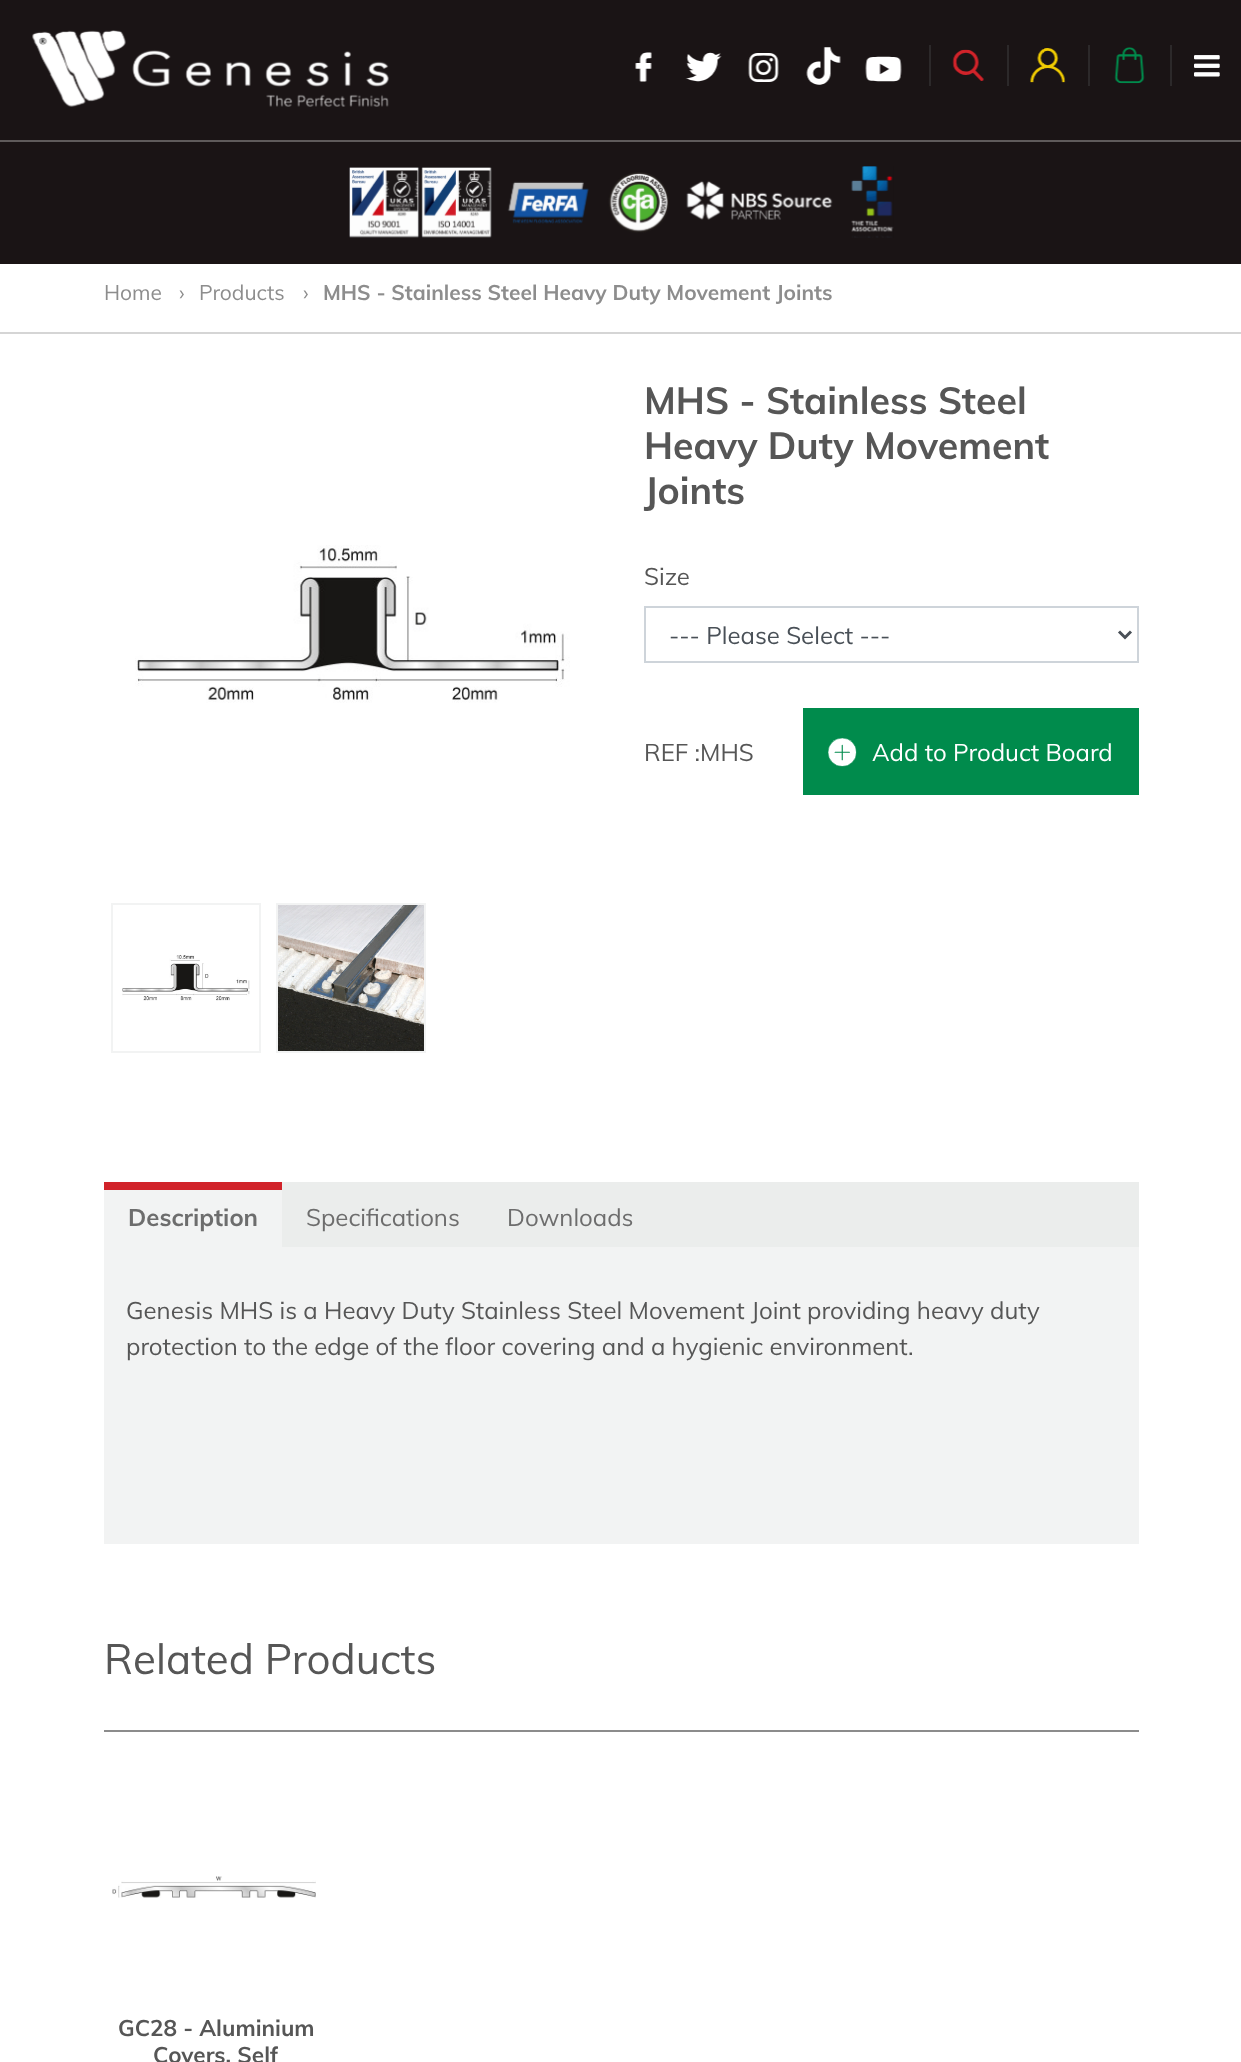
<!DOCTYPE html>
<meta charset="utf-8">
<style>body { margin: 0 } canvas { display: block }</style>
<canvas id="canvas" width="1241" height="2062"></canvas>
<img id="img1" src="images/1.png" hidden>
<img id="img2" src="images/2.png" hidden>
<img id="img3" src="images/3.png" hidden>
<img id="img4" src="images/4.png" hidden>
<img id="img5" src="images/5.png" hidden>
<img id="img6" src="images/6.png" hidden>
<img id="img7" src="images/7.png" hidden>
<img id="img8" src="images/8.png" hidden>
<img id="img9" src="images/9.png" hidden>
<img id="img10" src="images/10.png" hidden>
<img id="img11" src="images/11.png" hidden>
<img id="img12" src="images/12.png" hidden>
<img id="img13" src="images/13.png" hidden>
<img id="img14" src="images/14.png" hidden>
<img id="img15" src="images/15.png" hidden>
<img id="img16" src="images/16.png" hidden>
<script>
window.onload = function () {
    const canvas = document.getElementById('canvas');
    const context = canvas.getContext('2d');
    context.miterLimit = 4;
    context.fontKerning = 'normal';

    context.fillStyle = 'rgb(255, 255, 255)';
    context.fillRect(0, 0, 1241, 2062);
    context.fillStyle = 'rgb(26, 20, 21)';
    context.fillRect(0, 0, 1241, 264);
    context.drawImage(document.getElementById('img1'), 32, 30, 357, 77);
    context.drawImage(document.getElementById('img2'), 635, 52, 17, 30);
    context.drawImage(document.getElementById('img3'), 685, 52, 37, 30);
    context.drawImage(document.getElementById('img4'), 748, 53, 31, 29);
    context.drawImage(document.getElementById('img5'), 806, 47, 35, 38);
    context.drawImage(document.getElementById('img6'), 865, 56, 37, 26);
    context.fillStyle = 'rgb(44, 41, 42)';
    context.fillRect(929, 45, 2, 41);
    context.drawImage(document.getElementById('img7'), 952, 49, 32, 32);
    context.fillRect(1007, 45, 2, 41);
    context.drawImage(document.getElementById('img8'), 1030, 48, 36, 35);
    context.fillRect(1088, 45, 2, 41);
    context.drawImage(document.getElementById('img9'), 1114, 47, 31, 37);
    context.fillRect(1170, 45, 2, 41);
    context.drawImage(document.getElementById('img10'), 1194, 55, 26, 22);
    context.fillStyle = 'rgb(95, 91, 91)';
    context.fillRect(0, 140, 1241, 2);
    context.drawImage(document.getElementById('img11'), 349, 166, 545, 72);
    context.fillStyle = 'rgb(213, 213, 213)';
    context.fillRect(0, 332, 1241, 2);
    context.drawImage(document.getElementById('img12'), 135, 545, 435, 158);
    context.drawImage(document.getElementById('img13'), 122, 955, 128, 46);
    context.strokeStyle = 'rgb(242, 243, 243)';
    context.lineWidth = 2;
    context.strokeRect(112, 904, 148, 148);
    context.drawImage(document.getElementById('img14'), 278, 905, 146, 146);
    context.strokeRect(277, 904, 148, 148);
    context.strokeStyle = 'rgb(206, 212, 218)';
    context.strokeRect(645, 607, 493, 55);
    context.beginPath();
    context.moveTo(1119, 631.5);
    context.lineTo(1125, 637.5);
    context.lineTo(1131, 631.5);
    context.strokeStyle = 'rgb(73, 80, 87)';
    context.lineWidth = 3;
    context.stroke();
    context.fillStyle = 'rgb(0, 139, 76)';
    context.fillRect(803, 708, 336, 87);
    context.drawImage(document.getElementById('img15'), 828, 738, 29, 29);
    context.fillStyle = 'rgb(235, 237, 236)';
    context.fillRect(282, 1182, 857, 65);
    context.fillStyle = 'rgb(242, 243, 243)';
    context.fillRect(104, 1190, 178, 57);
    context.fillStyle = 'rgb(209, 35, 42)';
    context.fillRect(104, 1182, 178, 8);
    context.fillStyle = 'rgb(242, 243, 243)';
    context.fillRect(104, 1247, 1035, 297);
    context.fillStyle = 'rgb(140, 140, 140)';
    context.fillRect(104, 1730, 1035, 2);
    context.drawImage(document.getElementById('img16'), 112, 1876, 204, 22);
    context.font = '21px Muli';
    context.fillStyle = 'rgb(141, 141, 141)';
    context.fillText('Home', 104, 300);
    context.fillText('›', 179, 300);
    context.fillText('Products', 199, 300);
    context.fillText('›', 303, 300);
    context.font = 'bold 21px Muli';
    context.fillText('MHS - Stainless Steel Heavy Duty Movement Joints', 323, 300);
    context.font = 'bold 37.5px Muli';
    context.fillStyle = 'rgb(86, 86, 86)';
    context.fillText('MHS - Stainless Steel', 644, 414);
    context.fillText('Heavy Duty Movement', 644, 459);
    context.fillText('Joints', 644, 504);
    context.font = '24px Muli';
    context.fillText('Size', 644, 585);
    context.fillStyle = 'rgb(73, 80, 87)';
    context.fillText('--- Please Select ---', 669, 644);
    context.fillStyle = 'rgb(86, 86, 86)';
    context.fillText('REF :MHS', 644, 761);
    context.fillStyle = 'rgb(255, 255, 255)';
    context.fillText('Add to Product Board', 872, 761);
    context.font = 'bold 24px Muli';
    context.fillStyle = 'rgb(109, 109, 109)';
    context.fillText('Description', 128, 1226);
    context.font = '24px Muli';
    context.fillText('Specifications', 306, 1226);
    context.fillText('Downloads', 507, 1226);
    context.fillStyle = 'rgb(86, 86, 86)';
    context.fillText('Genesis MHS is a Heavy Duty Stainless Steel Movement Joint providing heavy duty', 126, 1319);
    context.fillText('protection to the edge of the floor covering and a hygienic environment.', 126, 1355);
    context.font = '42px Muli';
    context.fillText('Related Products', 104, 1674);
    context.font = 'bold 22.5px Muli';
    context.fillText('GC28 - Aluminium', 118, 2036);
    context.fillText('Covers, Self', 153, 2063);
};
</script>
